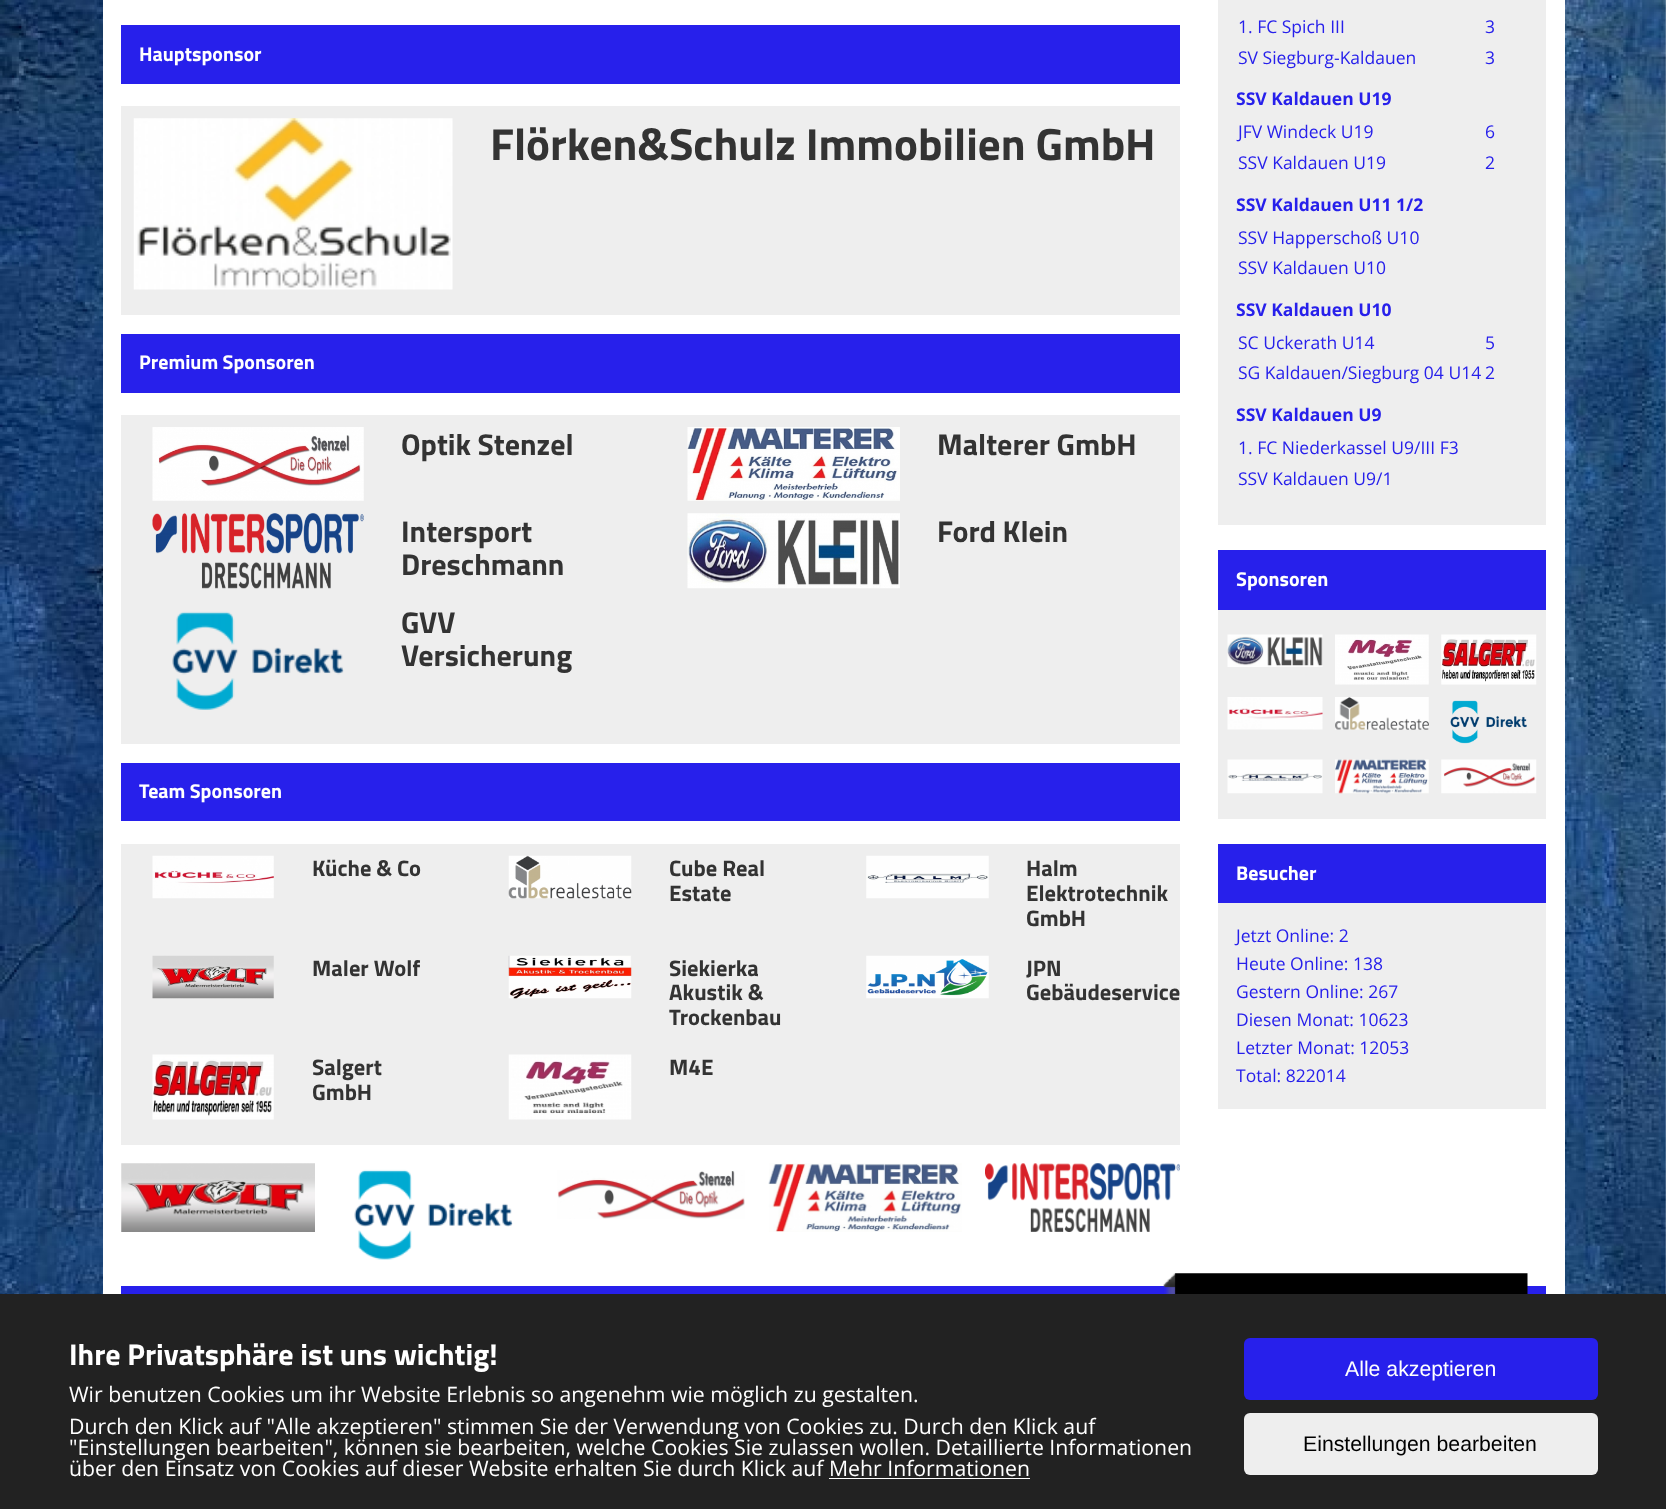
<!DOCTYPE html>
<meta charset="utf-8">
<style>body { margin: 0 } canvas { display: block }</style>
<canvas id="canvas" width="1666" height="1509"></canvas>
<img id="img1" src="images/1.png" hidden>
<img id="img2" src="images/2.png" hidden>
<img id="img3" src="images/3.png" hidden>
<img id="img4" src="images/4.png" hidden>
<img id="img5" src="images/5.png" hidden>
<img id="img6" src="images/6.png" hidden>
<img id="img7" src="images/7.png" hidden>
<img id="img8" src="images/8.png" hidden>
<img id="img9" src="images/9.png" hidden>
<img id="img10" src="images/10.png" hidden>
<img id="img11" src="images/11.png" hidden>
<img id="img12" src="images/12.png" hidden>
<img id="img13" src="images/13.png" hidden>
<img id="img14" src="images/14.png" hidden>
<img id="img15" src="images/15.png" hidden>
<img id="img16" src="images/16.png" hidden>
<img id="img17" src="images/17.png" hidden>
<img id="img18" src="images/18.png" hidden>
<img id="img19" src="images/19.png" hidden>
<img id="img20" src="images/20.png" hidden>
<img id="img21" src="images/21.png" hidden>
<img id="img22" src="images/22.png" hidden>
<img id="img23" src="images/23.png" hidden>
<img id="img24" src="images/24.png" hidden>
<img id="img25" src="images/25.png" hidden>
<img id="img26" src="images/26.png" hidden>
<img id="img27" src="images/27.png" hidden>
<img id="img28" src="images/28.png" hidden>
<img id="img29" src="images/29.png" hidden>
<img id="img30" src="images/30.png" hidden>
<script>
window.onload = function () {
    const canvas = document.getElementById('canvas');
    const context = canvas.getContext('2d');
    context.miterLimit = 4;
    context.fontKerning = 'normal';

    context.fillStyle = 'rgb(255, 255, 255)';
    context.fillRect(0, 0, 1666, 1509);
    context.drawImage(document.getElementById('img1'), 0, 0, 1666, 1294);
    context.fillRect(103, 0, 1462, 1294);
    context.fillStyle = 'rgb(39, 32, 235)';
    context.fillRect(121, 25, 1059, 59);
    context.fillStyle = 'rgb(238, 238, 238)';
    context.fillRect(121, 106, 1059, 209);
    context.drawImage(document.getElementById('img2'), 133, 118, 320, 172);
    context.fillStyle = 'rgb(39, 32, 235)';
    context.fillRect(121, 334, 1059, 59);
    context.fillStyle = 'rgb(238, 238, 238)';
    context.fillRect(121, 415, 1059, 329);
    context.drawImage(document.getElementById('img3'), 152, 427, 212, 74);
    context.drawImage(document.getElementById('img4'), 687, 427, 213, 74);
    context.drawImage(document.getElementById('img5'), 152, 513, 212, 76);
    context.drawImage(document.getElementById('img6'), 687, 513, 213, 76);
    context.drawImage(document.getElementById('img7'), 172, 611, 172, 99);
    context.fillStyle = 'rgb(39, 32, 235)';
    context.fillRect(121, 763, 1059, 58);
    context.fillStyle = 'rgb(238, 238, 238)';
    context.fillRect(121, 844, 1059, 301);
    context.drawImage(document.getElementById('img8'), 152, 855, 122, 44);
    context.drawImage(document.getElementById('img9'), 508, 855, 124, 44);
    context.drawImage(document.getElementById('img10'), 866, 855, 123, 44);
    context.drawImage(document.getElementById('img11'), 152, 955, 122, 44);
    context.drawImage(document.getElementById('img12'), 508, 955, 124, 44);
    context.drawImage(document.getElementById('img13'), 866, 955, 123, 44);
    context.drawImage(document.getElementById('img14'), 152, 1054, 122, 66);
    context.drawImage(document.getElementById('img15'), 508, 1054, 124, 66);
    context.drawImage(document.getElementById('img16'), 121, 1163, 194, 69);
    context.drawImage(document.getElementById('img17'), 354, 1169, 159, 91);
    context.drawImage(document.getElementById('img18'), 557, 1170, 188, 49);
    context.drawImage(document.getElementById('img19'), 768, 1163, 194, 69);
    context.drawImage(document.getElementById('img20'), 985, 1163, 195, 69);
    context.fillRect(1218, 0, 328, 525);
    context.fillRect(1218, 610, 328, 209);
    context.fillStyle = 'rgb(39, 32, 235)';
    context.fillRect(1218, 550, 328, 60);
    context.drawImage(document.getElementById('img21'), 1227, 634, 96, 33);
    context.drawImage(document.getElementById('img22'), 1335, 634, 94, 51);
    context.drawImage(document.getElementById('img23'), 1441, 634, 96, 51);
    context.drawImage(document.getElementById('img24'), 1227, 697, 96, 33);
    context.drawImage(document.getElementById('img25'), 1335, 697, 94, 33);
    context.drawImage(document.getElementById('img26'), 1450, 700, 77, 44);
    context.drawImage(document.getElementById('img27'), 1227, 759, 96, 35);
    context.drawImage(document.getElementById('img28'), 1335, 759, 94, 35);
    context.drawImage(document.getElementById('img29'), 1441, 759, 96, 35);
    context.fillStyle = 'rgb(238, 238, 238)';
    context.fillRect(1218, 903, 328, 206);
    context.fillStyle = 'rgb(39, 32, 235)';
    context.fillRect(1218, 844, 328, 59);
    context.fillRect(121, 1286, 1425, 8);
    context.drawImage(document.getElementById('img30'), 1163, 1273, 365, 21);
    context.fillStyle = 'rgb(34, 34, 34)';
    context.fillRect(0, 1294, 1666, 215);
    context.fillStyle = 'rgb(255, 255, 255)';
    context.fillRect(829, 1478, 201, 1);
    context.fillStyle = 'rgb(39, 32, 235)';
    context.beginPath();
    context.roundRect(1244, 1338, 354, 62, 6);
    context.fill();
    context.fillStyle = 'rgb(238, 238, 238)';
    context.beginPath();
    context.roundRect(1244, 1413, 354, 62, 6);
    context.fill();
    context.font = 'bold 20px Titillium Web';
    context.fillStyle = 'rgb(255, 255, 255)';
    context.fillText('Hauptsponsor', 139, 61);
    context.font = 'bold 45px Titillium Web';
    context.fillStyle = 'rgb(51, 51, 51)';
    context.fillText('Flörken&Schulz Immobilien GmbH', 490, 160);
    context.font = 'bold 20px Titillium Web';
    context.fillStyle = 'rgb(255, 255, 255)';
    context.fillText('Premium Sponsoren', 139, 369);
    context.font = 'bold 30px Titillium Web';
    context.fillStyle = 'rgb(51, 51, 51)';
    context.fillText('Optik Stenzel', 401, 455);
    context.fillText('Malterer GmbH', 937, 455);
    context.fillText('Intersport', 401, 542);
    context.fillText('Dreschmann', 401, 575);
    context.fillText('Ford Klein', 937, 542);
    context.fillText('GVV', 401, 633);
    context.fillText('Versicherung', 401, 666);
    context.font = 'bold 20px Titillium Web';
    context.fillStyle = 'rgb(255, 255, 255)';
    context.fillText('Team Sponsoren', 139, 798);
    context.font = 'bold 22.5px Titillium Web';
    context.fillStyle = 'rgb(51, 51, 51)';
    context.fillText('Küche & Co', 312, 876);
    context.fillText('Cube Real', 669, 876);
    context.fillText('Estate', 669, 901);
    context.fillText('Halm', 1026, 876);
    context.fillText('Elektrotechnik', 1026, 901);
    context.fillText('GmbH', 1026, 926);
    context.fillText('Maler Wolf', 312, 976);
    context.fillText('Siekierka', 669, 976);
    context.fillText('Akustik &', 669, 1000);
    context.fillText('Trockenbau', 669, 1025);
    context.fillText('JPN', 1026, 976);
    context.fillText('Gebäudeservice', 1026, 1000);
    context.fillText('Salgert', 312, 1075);
    context.fillText('GmbH', 312, 1100);
    context.fillText('M4E', 669, 1075);
    context.font = '17.5px Open Sans';
    context.fillStyle = 'rgb(39, 32, 235)';
    context.fillText('1. FC Spich III', 1238, 33);
    context.fillText('3', 1485, 33);
    context.fillText('SV Siegburg-Kaldauen', 1238, 64);
    context.fillText('3', 1485, 64);
    context.font = 'bold 17.5px Open Sans';
    context.fillText('SSV Kaldauen U19', 1236, 105);
    context.font = '17.5px Open Sans';
    context.fillText('JFV Windeck U19', 1238, 138);
    context.fillText('6', 1485, 138);
    context.fillText('SSV Kaldauen U19', 1238, 169);
    context.fillText('2', 1485, 169);
    context.font = 'bold 17.5px Open Sans';
    context.fillText('SSV Kaldauen U11 1/2', 1236, 211);
    context.font = '17.5px Open Sans';
    context.fillText('SSV Happerschoß U10', 1238, 244);
    context.fillText('SSV Kaldauen U10', 1238, 274);
    context.font = 'bold 17.5px Open Sans';
    context.fillText('SSV Kaldauen U10', 1236, 316);
    context.font = '17.5px Open Sans';
    context.fillText('SC Uckerath U14', 1238, 349);
    context.fillText('5', 1485, 349);
    context.fillText('SG Kaldauen/Siegburg 04 U14', 1238, 379);
    context.fillText('2', 1485, 379);
    context.font = 'bold 17.5px Open Sans';
    context.fillText('SSV Kaldauen U9', 1236, 421);
    context.font = '17.5px Open Sans';
    context.fillText('1. FC Niederkassel U9/III F3', 1238, 454);
    context.fillText('SSV Kaldauen U9/1', 1238, 485);
    context.font = 'bold 20px Titillium Web';
    context.fillStyle = 'rgb(255, 255, 255)';
    context.fillText('Sponsoren', 1236, 586);
    context.fillText('Besucher', 1236, 880);
    context.font = '17.5px Open Sans';
    context.fillStyle = 'rgb(39, 32, 235)';
    context.fillText('Jetzt Online: 2', 1236, 942);
    context.fillText('Heute Online: 138', 1236, 970);
    context.fillText('Gestern Online: 267', 1236, 998);
    context.fillText('Diesen Monat: 10623', 1236, 1026);
    context.fillText('Letzter Monat: 12053', 1236, 1054);
    context.fillText('Total: 822014', 1236, 1082);
    context.font = 'bold 30px Titillium Web';
    context.fillStyle = 'rgb(255, 255, 255)';
    context.fillText('Ihre Privatsphäre ist uns wichtig!', 69, 1365);
    context.font = '21.25px Open Sans';
    context.fillText('Wir benutzen Cookies um ihr Website Erlebnis so angenehm wie möglich zu gestalten.', 69, 1402);
    context.fillText('Durch den Klick auf "Alle akzeptieren" stimmen Sie der Verwendung von Cookies zu. Durch den Klick auf', 69, 1434);
    context.fillText('"Einstellungen bearbeiten", können sie bearbeiten, welche Cookies Sie zulassen wollen. Detaillierte Informationen', 69, 1455);
    context.fillText('über den Einsatz von Cookies auf dieser Website erhalten Sie durch Klick auf Mehr Informationen', 69, 1476);
    context.font = '21.25px Liberation Sans';
    context.fillText('Alle akzeptieren', 1345, 1376);
    context.fillStyle = 'rgb(0, 0, 0)';
    context.fillText('Einstellungen bearbeiten', 1303, 1451);
};
</script>
